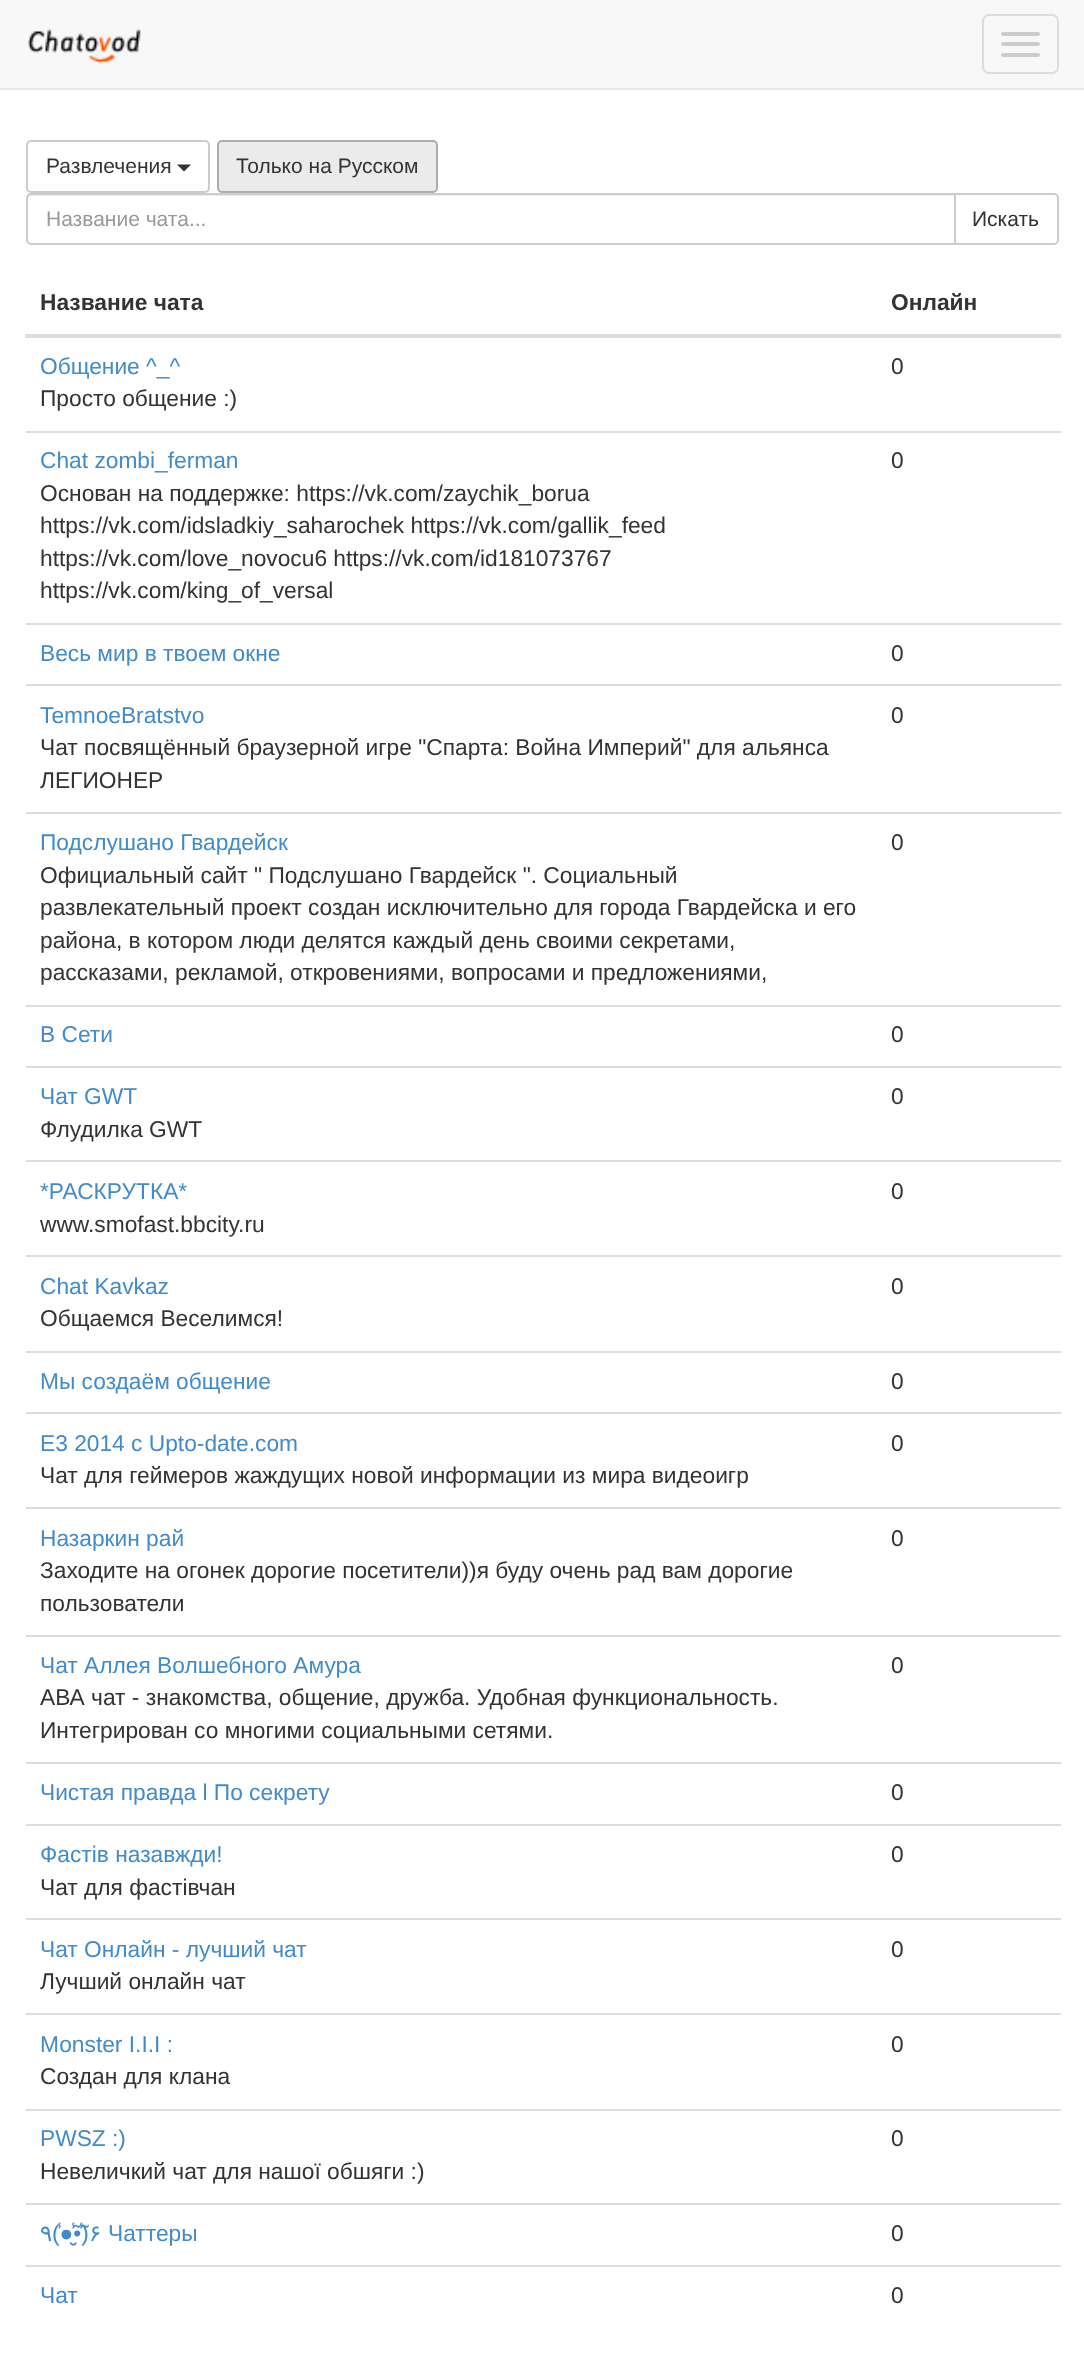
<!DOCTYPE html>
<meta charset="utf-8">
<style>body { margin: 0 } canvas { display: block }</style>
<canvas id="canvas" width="1084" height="2358"></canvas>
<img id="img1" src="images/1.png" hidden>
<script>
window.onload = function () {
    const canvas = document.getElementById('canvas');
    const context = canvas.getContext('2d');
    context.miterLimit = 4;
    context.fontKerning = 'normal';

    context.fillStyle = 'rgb(255, 255, 255)';
    context.fillRect(0, 0, 1084, 2358);
    context.fillStyle = 'rgb(248, 248, 248)';
    context.fillRect(0, 0, 1084, 88);
    context.fillStyle = 'rgb(231, 231, 231)';
    context.fillRect(0, 88, 1084, 2);
    context.drawImage(document.getElementById('img1'), 27, 29, 114, 35);
    context.beginPath();
    context.roundRect(983, 15, 75, 58, 6);
    context.strokeStyle = 'rgb(221, 221, 221)';
    context.lineWidth = 2;
    context.stroke();
    context.fillStyle = 'rgb(204, 204, 204)';
    context.beginPath();
    context.roundRect(1001, 32, 39, 4, 2);
    context.fill();
    context.beginPath();
    context.roundRect(1001, 42, 39, 4, 2);
    context.fill();
    context.beginPath();
    context.roundRect(1001, 53, 39, 4, 2);
    context.fill();
    context.beginPath();
    context.roundRect(27, 141, 182, 51, 4);
    context.strokeStyle = 'rgb(204, 204, 204)';
    context.stroke();
    context.fillStyle = 'rgb(51, 51, 51)';
    context.beginPath();
    context.moveTo(177, 164.5);
    context.lineTo(191, 164.5);
    context.lineTo(184, 171.5);
    context.closePath();
    context.fill();
    context.fillStyle = 'rgb(235, 235, 235)';
    context.beginPath();
    context.roundRect(218, 141, 219, 51, 4);
    context.fill();
    context.strokeStyle = 'rgb(173, 173, 173)';
    context.stroke();
    context.fillStyle = 'rgb(236, 236, 236)';
    context.beginPath();
    context.moveTo(32, 196);
    context.lineTo(954, 196);
    context.lineTo(954, 194);
    context.lineTo(32, 194);
    context.bezierCurveTo(28, 194, 28, 197, 28, 200);
    context.bezierCurveTo(28, 198, 30, 196, 32, 196);
    context.closePath();
    context.fill();
    context.beginPath();
    context.roundRect(27, 194, 928, 50, [4, 0, 0, 4]);
    context.strokeStyle = 'rgb(204, 204, 204)';
    context.stroke();
    context.fillStyle = 'rgb(255, 255, 255)';
    context.beginPath();
    context.roundRect(955, 194, 103, 50, [0, 4, 4, 0]);
    context.fill();
    context.stroke();
    context.fillStyle = 'rgb(221, 221, 221)';
    context.fillRect(25, 334, 1036, 4);
    context.fillRect(26, 431, 1035, 2);
    context.fillRect(26, 623, 1035, 2);
    context.fillRect(26, 684, 1035, 2);
    context.fillRect(26, 812, 1035, 2);
    context.fillRect(26, 1005, 1035, 2);
    context.fillRect(26, 1066, 1035, 2);
    context.fillRect(26, 1160, 1035, 2);
    context.fillRect(26, 1255, 1035, 2);
    context.fillRect(26, 1351, 1035, 2);
    context.fillRect(26, 1412, 1035, 2);
    context.fillRect(26, 1507, 1035, 2);
    context.fillRect(26, 1635, 1035, 2);
    context.fillRect(26, 1762, 1035, 2);
    context.fillRect(26, 1824, 1035, 2);
    context.fillRect(26, 1918, 1035, 2);
    context.fillRect(26, 2013, 1035, 2);
    context.fillRect(26, 2109, 1035, 2);
    context.fillRect(26, 2203, 1035, 2);
    context.fillRect(26, 2265, 1035, 2);
    context.font = '21px Liberation Sans';
    context.fillStyle = 'rgb(51, 51, 51)';
    context.fillText('Развлечения', 46, 173);
    context.fillText('Только на Русском', 236, 173);
    context.fillStyle = 'rgb(153, 153, 153)';
    context.fillText('Название чата...', 46, 226);
    context.fillStyle = 'rgb(51, 51, 51)';
    context.fillText('Искать', 972, 226);
    context.font = 'bold 22.75px Liberation Sans';
    context.fillText('Название чата', 40, 310);
    context.fillText('Онлайн', 891, 310);
    context.font = '22.75px Liberation Sans';
    context.fillStyle = 'rgb(66, 139, 202)';
    context.fillText('Общение ^_^', 40, 374);
    context.fillStyle = 'rgb(51, 51, 51)';
    context.fillText('Просто общение :)', 40, 406);
    context.fillText('0', 891, 374);
    context.fillStyle = 'rgb(66, 139, 202)';
    context.fillText('Chat zombi_ferman', 40, 468);
    context.fillStyle = 'rgb(51, 51, 51)';
    context.fillText('Основан на поддержке: https://vk.com/zaychik_borua', 40, 501);
    context.fillText('https://vk.com/idsladkiy_saharochek https://vk.com/gallik_feed', 40, 533);
    context.fillText('https://vk.com/love_novocu6 https://vk.com/id181073767', 40, 566);
    context.fillText('https://vk.com/king_of_versal', 40, 598);
    context.fillText('0', 891, 468);
    context.fillStyle = 'rgb(66, 139, 202)';
    context.fillText('Весь мир в твоем окне', 40, 661);
    context.fillStyle = 'rgb(51, 51, 51)';
    context.fillText('0', 891, 661);
    context.fillStyle = 'rgb(66, 139, 202)';
    context.fillText('TemnoeBratstvo', 40, 723);
    context.fillStyle = 'rgb(51, 51, 51)';
    context.fillText('Чат посвящённый браузерной игре "Спарта: Война Империй" для альянса', 40, 755);
    context.fillText('ЛЕГИОНЕР', 40, 788);
    context.fillText('0', 891, 723);
    context.fillStyle = 'rgb(66, 139, 202)';
    context.fillText('Подслушано Гвардейск', 40, 850);
    context.fillStyle = 'rgb(51, 51, 51)';
    context.fillText('Официальный сайт " Подслушано Гвардейск ". Социальный', 40, 883);
    context.fillText('развлекательный проект создан исключительно для города Гвардейска и его', 40, 915);
    context.fillText('района, в котором люди делятся каждый день своими секретами,', 40, 948);
    context.fillText('рассказами, рекламой, откровениями, вопросами и предложениями,', 40, 980);
    context.fillText('0', 891, 850);
    context.fillStyle = 'rgb(66, 139, 202)';
    context.fillText('В Сети', 40, 1042);
    context.fillStyle = 'rgb(51, 51, 51)';
    context.fillText('0', 891, 1042);
    context.fillStyle = 'rgb(66, 139, 202)';
    context.fillText('Чат GWT', 40, 1104);
    context.fillStyle = 'rgb(51, 51, 51)';
    context.fillText('Флудилка GWT', 40, 1137);
    context.fillText('0', 891, 1104);
    context.fillStyle = 'rgb(66, 139, 202)';
    context.fillText('*РАСКРУТКА*', 40, 1199);
    context.fillStyle = 'rgb(51, 51, 51)';
    context.fillText('www.smofast.bbcity.ru', 40, 1232);
    context.fillText('0', 891, 1199);
    context.fillStyle = 'rgb(66, 139, 202)';
    context.fillText('Chat Kavkaz', 40, 1294);
    context.fillStyle = 'rgb(51, 51, 51)';
    context.fillText('Общаемся Веселимся!', 40, 1326);
    context.fillText('0', 891, 1294);
    context.fillStyle = 'rgb(66, 139, 202)';
    context.fillText('Мы создаём общение', 40, 1389);
    context.fillStyle = 'rgb(51, 51, 51)';
    context.fillText('0', 891, 1389);
    context.fillStyle = 'rgb(66, 139, 202)';
    context.fillText('E3 2014 с Upto-date.com', 40, 1451);
    context.fillStyle = 'rgb(51, 51, 51)';
    context.fillText('Чат для геймеров жаждущих новой информации из мира видеоигр', 40, 1483);
    context.fillText('0', 891, 1451);
    context.fillStyle = 'rgb(66, 139, 202)';
    context.fillText('Назаркин рай', 40, 1546);
    context.fillStyle = 'rgb(51, 51, 51)';
    context.fillText('Заходите на огонек дорогие посетители))я буду очень рад вам дорогие', 40, 1578);
    context.fillText('пользователи', 40, 1611);
    context.fillText('0', 891, 1546);
    context.fillStyle = 'rgb(66, 139, 202)';
    context.fillText('Чат Аллея Волшебного Амура', 40, 1673);
    context.fillStyle = 'rgb(51, 51, 51)';
    context.fillText('АВА чат - знакомства, общение, дружба. Удобная функциональность.', 40, 1705);
    context.fillText('Интегрирован со многими социальными сетями.', 40, 1738);
    context.fillText('0', 891, 1673);
    context.fillStyle = 'rgb(66, 139, 202)';
    context.fillText('Чистая правда l По секрету', 40, 1800);
    context.fillStyle = 'rgb(51, 51, 51)';
    context.fillText('0', 891, 1800);
    context.fillStyle = 'rgb(66, 139, 202)';
    context.fillText('Фастів назавжди!', 40, 1862);
    context.fillStyle = 'rgb(51, 51, 51)';
    context.fillText('Чат для фастівчан', 40, 1895);
    context.fillText('0', 891, 1862);
    context.fillStyle = 'rgb(66, 139, 202)';
    context.fillText('Чат Онлайн - лучший чат', 40, 1957);
    context.fillStyle = 'rgb(51, 51, 51)';
    context.fillText('Лучший онлайн чат', 40, 1989);
    context.fillText('0', 891, 1957);
    context.fillStyle = 'rgb(66, 139, 202)';
    context.fillText('Моnster I.I.I :', 40, 2052);
    context.fillStyle = 'rgb(51, 51, 51)';
    context.fillText('Создан для клана', 40, 2084);
    context.fillText('0', 891, 2052);
    context.fillStyle = 'rgb(66, 139, 202)';
    context.fillText('PWSZ :)', 40, 2146);
    context.fillStyle = 'rgb(51, 51, 51)';
    context.fillText('Невеличкий чат для нашої обшяги :)', 40, 2179);
    context.fillText('0', 891, 2146);
    context.font = '22.75px DejaVu Sans';
    context.fillStyle = 'rgb(66, 139, 202)';
    context.fillText('٩', 40, 2241);
    context.font = '22.75px Liberation Sans';
    context.fillText('(̾●̮̮̃̾•̃̾)', 52, 2241);
    context.font = '22.75px DejaVu Sans';
    context.fillText('۶', 89, 2241);
    context.font = '22.75px Liberation Sans';
    context.fillText('Чаттеры', 108, 2241);
    context.fillStyle = 'rgb(51, 51, 51)';
    context.fillText('0', 891, 2241);
    context.fillStyle = 'rgb(66, 139, 202)';
    context.fillText('Чат', 40, 2303);
    context.fillStyle = 'rgb(51, 51, 51)';
    context.fillText('0', 891, 2303);
};
</script>
